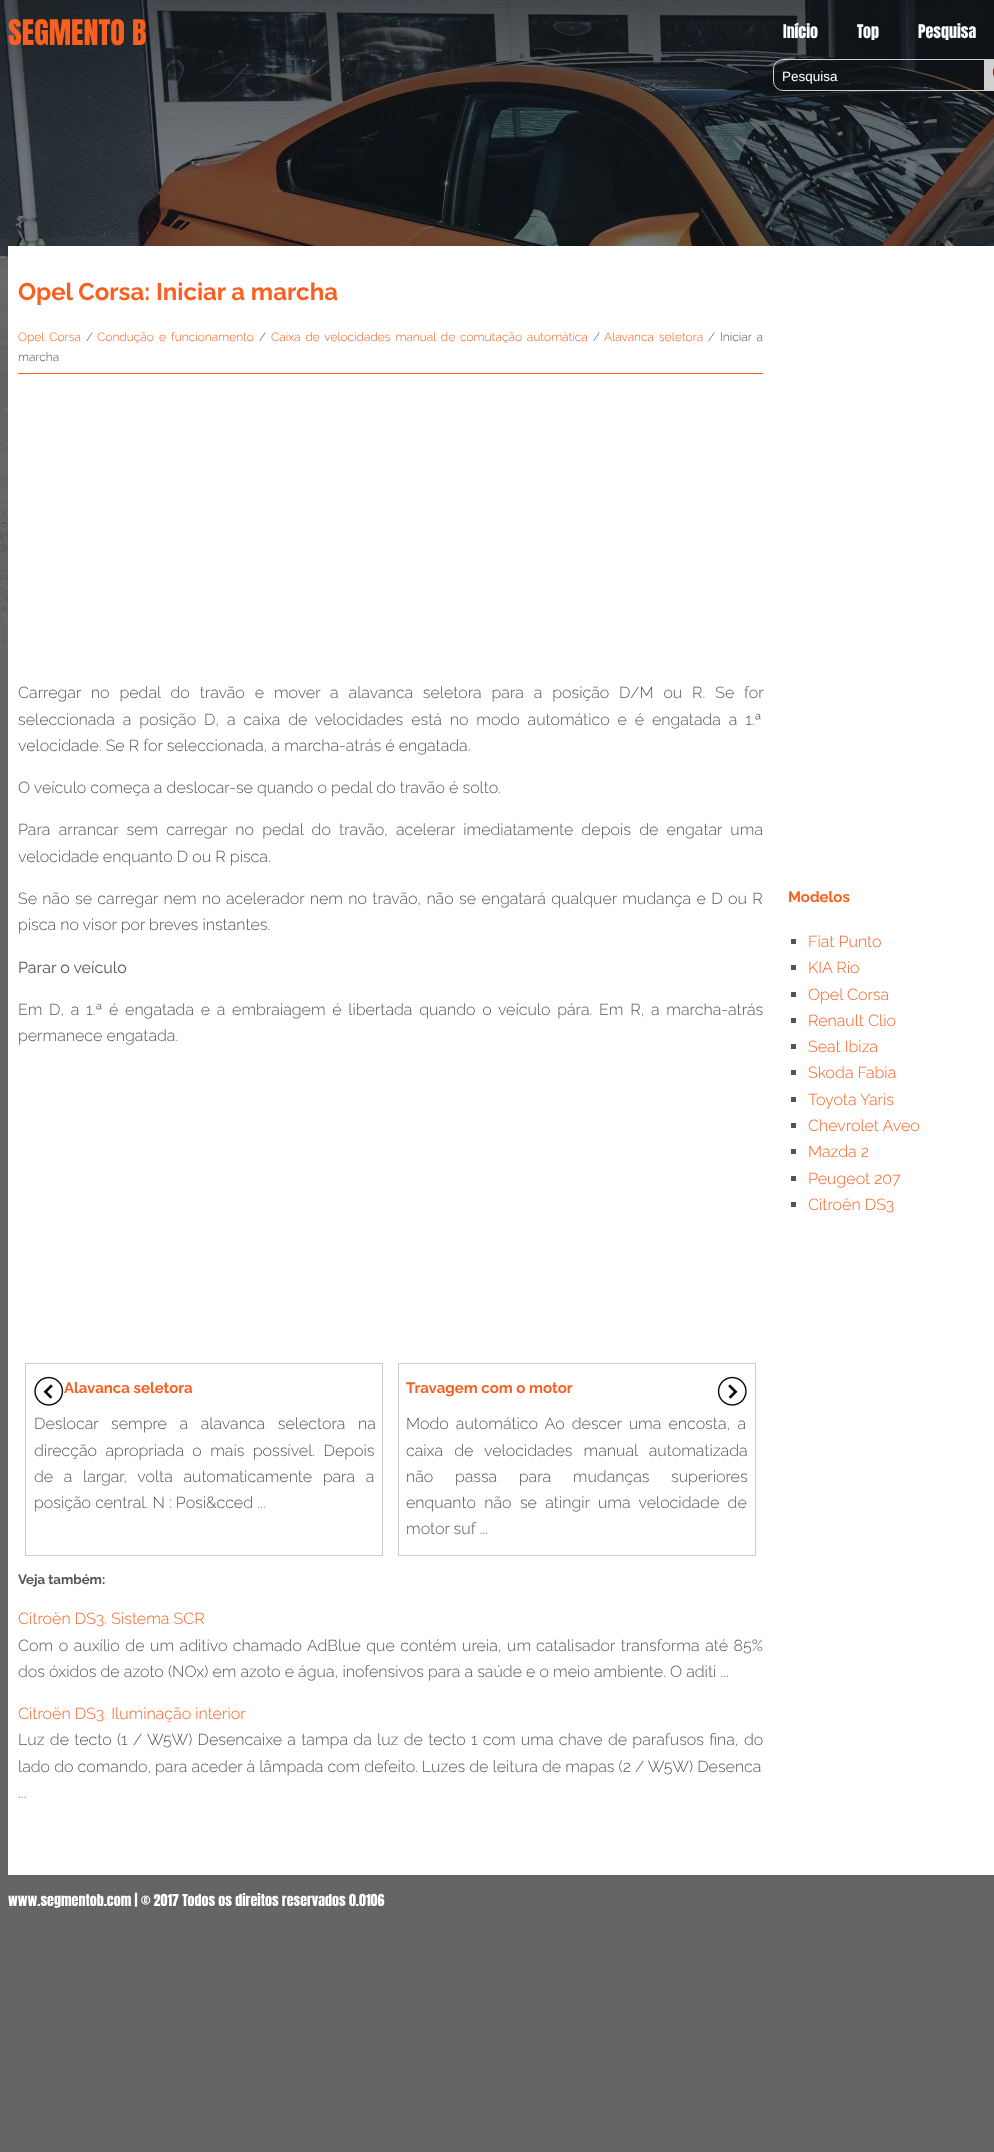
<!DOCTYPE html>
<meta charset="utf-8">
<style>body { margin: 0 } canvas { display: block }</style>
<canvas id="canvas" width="994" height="2152"></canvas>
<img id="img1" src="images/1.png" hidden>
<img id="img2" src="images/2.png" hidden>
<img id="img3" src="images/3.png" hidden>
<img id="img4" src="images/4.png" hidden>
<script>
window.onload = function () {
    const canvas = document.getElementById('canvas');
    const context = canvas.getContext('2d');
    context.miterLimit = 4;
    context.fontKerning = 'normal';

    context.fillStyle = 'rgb(100, 101, 103)';
    context.fillRect(0, 0, 994, 2152);
    context.drawImage(document.getElementById('img1'), 0, 0, 994, 646);
    context.beginPath();
    context.roundRect(773.5, 59.5, 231, 31, 9.5);
    context.strokeStyle = 'rgb(208, 208, 208)';
    context.stroke();
    context.fillStyle = 'rgb(208, 208, 208)';
    context.fillRect(984, 60, 10, 30);
    context.drawImage(document.getElementById('img2'), 992, 67, 2, 11);
    context.fillStyle = 'rgb(255, 255, 255)';
    context.fillRect(8, 246, 986, 1629);
    context.fillStyle = 'rgb(249, 96, 32)';
    context.fillRect(18, 373, 745, 1);
    context.strokeStyle = 'rgb(204, 204, 204)';
    context.strokeRect(25.5, 1363.5, 357, 192);
    context.drawImage(document.getElementById('img3'), 34, 1376, 30, 30);
    context.strokeRect(398.5, 1363.5, 357, 192);
    context.drawImage(document.getElementById('img4'), 717, 1376, 30, 30);
    context.fillStyle = 'rgb(85, 85, 85)';
    context.fillRect(791, 939, 5, 5);
    context.fillRect(791, 965, 5, 5);
    context.fillRect(791, 992, 5, 5);
    context.fillRect(791, 1018, 5, 5);
    context.fillRect(791, 1044, 5, 5);
    context.fillRect(791, 1070, 5, 5);
    context.fillRect(791, 1097, 5, 5);
    context.fillRect(791, 1123, 5, 5);
    context.fillRect(791, 1149, 5, 5);
    context.fillRect(791, 1176, 5, 5);
    context.fillRect(791, 1202, 5, 5);
    context.font = '30px Anton';
    context.fillStyle = 'rgb(249, 96, 32)';
    context.fillText('SEGMENTO B', 8, 45);
    context.font = '16px Anton';
    context.fillStyle = 'rgb(255, 255, 255)';
    context.fillText('Início', 783, 38);
    context.fillText('Top', 857, 38);
    context.fillText('Pesquisa', 918, 38);
    context.font = '13.5px Liberation Sans';
    context.fillText('Pesquisa', 782, 81);
    context.font = 'bold 24px Raleway';
    context.fillStyle = 'rgb(249, 96, 32)';
    context.fillText('Opel Corsa: Iniciar a marcha', 18, 300);
    context.wordSpacing = '2px';
    context.font = '300 12px Raleway';
    context.fillText('Opel Corsa', 18, 341);
    context.wordSpacing = '0px';
    context.fillStyle = 'rgb(85, 85, 85)';
    context.fillText('/', 86, 341);
    context.wordSpacing = '2px';
    context.fillStyle = 'rgb(249, 96, 32)';
    context.fillText('Condução e funcionamento', 97, 341);
    context.wordSpacing = '0px';
    context.fillStyle = 'rgb(85, 85, 85)';
    context.fillText('/', 259, 341);
    context.wordSpacing = '1.75px';
    context.fillStyle = 'rgb(249, 96, 32)';
    context.fillText('Caixa de velocidades manual de comutação automática', 271, 341);
    context.wordSpacing = '0px';
    context.fillStyle = 'rgb(85, 85, 85)';
    context.fillText('/', 593, 341);
    context.wordSpacing = '2px';
    context.fillStyle = 'rgb(249, 96, 32)';
    context.fillText('Alavanca seletora', 604, 341);
    context.wordSpacing = '0px';
    context.fillStyle = 'rgb(85, 85, 85)';
    context.fillText('/', 708, 341);
    context.wordSpacing = '2px';
    context.fillText('Iniciar a', 720, 341);
    context.wordSpacing = '0px';
    context.fillText('marcha', 18, 361);
    context.wordSpacing = '5.75px';
    context.font = '300 16px Raleway';
    context.fillText('Carregar no pedal do travão e mover a alavanca seletora para a posição D/M ou R. Se for', 18, 698);
    context.wordSpacing = '3.75px';
    context.fillText('seleccionada a posição D, a caixa de velocidades está no modo automático e é engatada a 1.ª', 18, 725);
    context.wordSpacing = '0px';
    context.fillText('velocidade. Se R for seleccionada, a marcha-atrás é engatada.', 18, 751);
    context.fillText('O veículo começa a deslocar-se quando o pedal do travão é solto.', 18, 793);
    context.wordSpacing = '4.1px';
    context.fillText('Para arrancar sem carregar no pedal do travão, acelerar imediatamente depois de engatar uma', 18, 835);
    context.wordSpacing = '0px';
    context.fillText('velocidade enquanto D ou R pisca.', 18, 862);
    context.wordSpacing = '1.25px';
    context.fillText('Se não se carregar nem no acelerador nem no travão, não se engatará qualquer mudança e D ou R', 18, 904);
    context.wordSpacing = '0px';
    context.fillText('pisca no visor por breves instantes.', 18, 930);
    context.font = '16px Raleway';
    context.fillText('Parar o veículo', 18, 973);
    context.wordSpacing = '2.6px';
    context.font = '300 16px Raleway';
    context.fillText('Em D, a 1.ª é engatada e a embraiagem é libertada quando o veículo pára. Em R, a marcha-atrás', 18, 1015);
    context.wordSpacing = '0px';
    context.fillText('permanece engatada.', 18, 1041);
    context.font = 'bold 15px Raleway';
    context.fillStyle = 'rgb(249, 96, 32)';
    context.fillText('Alavanca seletora', 64, 1393);
    context.wordSpacing = '8.5px';
    context.font = '300 16px Raleway';
    context.fillStyle = 'rgb(85, 85, 85)';
    context.fillText('Deslocar sempre a alavanca selectora na', 34, 1429);
    context.wordSpacing = '4.25px';
    context.fillText('direcção apropriada o mais possível. Depois', 34, 1456);
    context.wordSpacing = '6.5px';
    context.fillText('de a largar, volta automaticamente para a', 34, 1482);
    context.wordSpacing = '0px';
    context.fillText('posição central. N : Posi&cced ...', 34, 1508);
    context.font = 'bold 15px Raleway';
    context.fillStyle = 'rgb(249, 96, 32)';
    context.fillText('Travagem com o motor', 406, 1393);
    context.wordSpacing = '3px';
    context.font = '300 16px Raleway';
    context.fillStyle = 'rgb(85, 85, 85)';
    context.fillText('Modo automático Ao descer uma encosta, a', 406, 1429);
    context.wordSpacing = '7px';
    context.fillText('caixa de velocidades manual automatizada', 406, 1456);
    context.wordSpacing = '17.5px';
    context.fillText('não passa para mudanças superiores', 406, 1482);
    context.wordSpacing = '4.25px';
    context.fillText('enquanto não se atingir uma velocidade de', 406, 1508);
    context.wordSpacing = '0px';
    context.fillText('motor suf ...', 406, 1534);
    context.font = 'bold 13.25px Raleway';
    context.fillText('Veja também:', 18, 1584);
    context.font = '300 16px Raleway';
    context.fillStyle = 'rgb(249, 96, 32)';
    context.fillText('Citroën DS3. Sistema SCR', 18, 1624);
    context.wordSpacing = '1.4px';
    context.fillStyle = 'rgb(85, 85, 85)';
    context.fillText('Com o auxílio de um aditivo chamado AdBlue que contém ureia, um', 18, 1651);
    context.wordSpacing = '1.5px';
    context.fillText('catalisador transforma até 85%', 536, 1651);
    context.wordSpacing = '0px';
    context.fillText('dos óxidos de azoto (NOx) em azoto e água, inofensivos para a saúde e o meio ambiente. O aditi ...', 18, 1677);
    context.fillStyle = 'rgb(249, 96, 32)';
    context.fillText('Citroën DS3. Iluminação interior', 18, 1719);
    context.wordSpacing = '1.2px';
    context.fillStyle = 'rgb(85, 85, 85)';
    context.fillText('Luz de tecto (1 / W5W) Desencaixe a tampa da luz de tecto 1 com uma chave de parafusos fina, do', 18, 1745);
    context.wordSpacing = '0px';
    context.fillText('lado do comando, para aceder à lâmpada com defeito. Luzes de leitura de mapas (2 / W5W) Desenca', 18, 1772);
    context.fillText('...', 18, 1798);
    context.font = 'bold 15px Raleway';
    context.fillStyle = 'rgb(249, 96, 32)';
    context.fillText('Modelos', 788, 902);
    context.font = '300 16px Raleway';
    context.fillText('Fiat Punto', 808, 947);
    context.fillText('KIA Rio', 808, 973);
    context.fillText('Opel Corsa', 808, 1000);
    context.fillText('Renault Clio', 808, 1026);
    context.fillText('Seat Ibiza', 808, 1052);
    context.fillText('Skoda Fabia', 808, 1078);
    context.fillText('Toyota Yaris', 808, 1105);
    context.fillText('Chevrolet Aveo', 808, 1131);
    context.fillText('Mazda 2', 808, 1157);
    context.fillText('Peugeot 207', 808, 1184);
    context.fillText('Citroën DS3', 808, 1210);
    context.font = '14px Anton';
    context.fillStyle = 'rgb(255, 255, 255)';
    context.fillText('www.segmentob.com | © 2017 Todos os direitos reservados 0.0106', 8, 1906);
};
</script>
